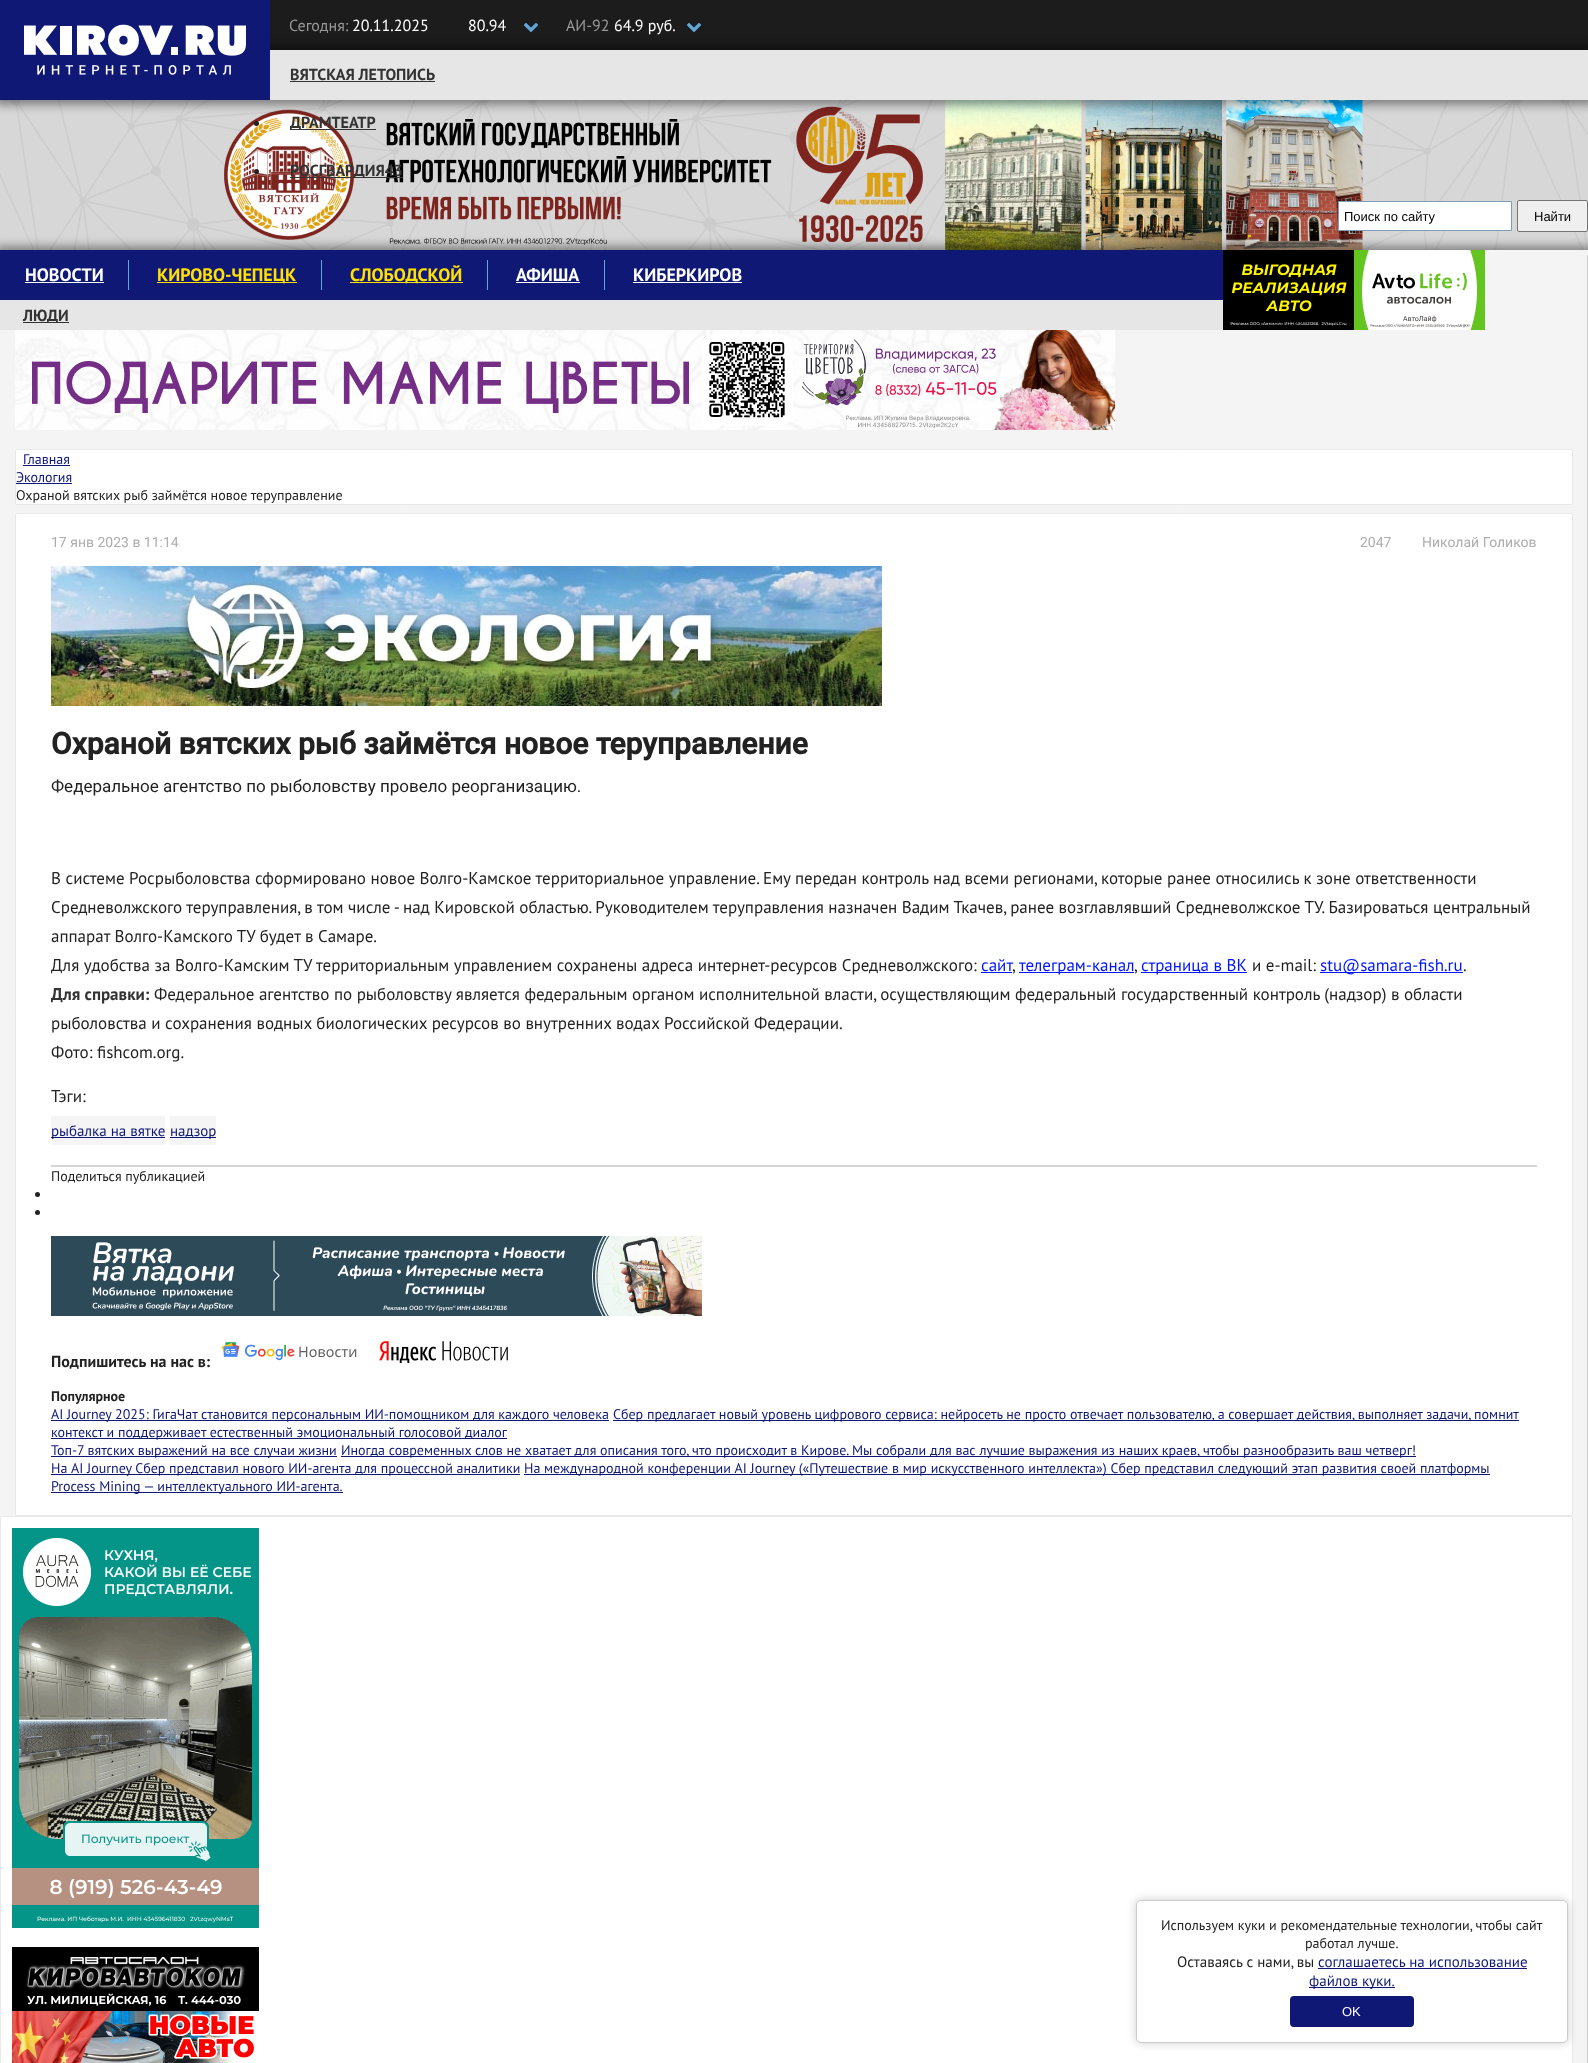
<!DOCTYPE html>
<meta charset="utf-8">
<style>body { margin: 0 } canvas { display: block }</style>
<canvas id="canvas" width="1588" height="2063"></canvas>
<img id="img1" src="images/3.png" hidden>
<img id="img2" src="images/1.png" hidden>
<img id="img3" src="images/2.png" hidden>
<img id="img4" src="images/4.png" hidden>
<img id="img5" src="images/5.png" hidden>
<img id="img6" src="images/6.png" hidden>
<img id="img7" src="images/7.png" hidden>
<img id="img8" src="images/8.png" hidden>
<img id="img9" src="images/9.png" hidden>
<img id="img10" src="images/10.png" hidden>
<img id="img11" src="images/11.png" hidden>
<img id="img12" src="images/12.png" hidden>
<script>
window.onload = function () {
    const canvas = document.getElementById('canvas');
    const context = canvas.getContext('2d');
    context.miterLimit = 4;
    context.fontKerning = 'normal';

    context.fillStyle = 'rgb(28, 28, 28)';
    context.fillRect(0, 0, 1588, 2063);
    context.drawImage(document.getElementById('img1'), 0, 100, 1588, 150);
    context.fillStyle = 'rgba(0, 0, 0, 0.4)';
    context.filter = 'blur(5px)';
    context.beginPath();
    context.rect(-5, 45, 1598, 60);
    context.fill();
    context.filter = 'none';
    context.drawImage(document.getElementById('img2'), 0, 0, 270, 100);
    context.drawImage(document.getElementById('img3'), 524, 23, 14, 9);
    context.drawImage(document.getElementById('img3'), 687, 23, 14, 9);
    context.fillStyle = 'rgb(230, 230, 230)';
    context.fillRect(270, 50, 1318, 50);
    context.fillStyle = 'rgb(51, 51, 51)';
    context.fillRect(290, 81, 145, 1);
    context.fillStyle = 'rgb(34, 34, 34)';
    context.beginPath();
    context.arc(256.5, 123.5, 2.5, 0, 2 * Math.PI);
    context.fill();
    context.fillStyle = 'rgb(51, 51, 51)';
    context.fillRect(290, 129, 86, 1);
    context.fillStyle = 'rgb(34, 34, 34)';
    context.beginPath();
    context.arc(256.5, 171.5, 2.5, 0, 2 * Math.PI);
    context.fill();
    context.fillStyle = 'rgb(51, 51, 51)';
    context.fillRect(290, 177, 113, 1);
    context.fillStyle = 'rgba(0, 0, 0, 0.4)';
    context.filter = 'blur(5px)';
    context.beginPath();
    context.rect(-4, 246, 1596, 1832);
    context.fill();
    context.filter = 'none';
    context.fillStyle = 'rgb(255, 255, 255)';
    context.beginPath();
    context.rect(1338.5, 201.5, 173, 29);
    context.fill();
    context.strokeStyle = 'rgb(127, 157, 185)';
    context.stroke();
    context.fillStyle = 'rgb(239, 239, 239)';
    context.beginPath();
    context.roundRect(1517.5, 200.5, 70, 31, 1.5);
    context.fill();
    context.strokeStyle = 'rgb(118, 118, 118)';
    context.stroke();
    context.fillStyle = 'rgb(244, 244, 244)';
    context.fillRect(0, 250, 1588, 1813);
    context.fillStyle = 'rgb(16, 24, 117)';
    context.fillRect(0, 250, 1223, 50);
    context.fillStyle = 'rgb(255, 255, 255)';
    context.fillRect(25, 282, 79, 1);
    context.fillStyle = 'rgb(98, 167, 217)';
    context.fillRect(128, 260, 1, 30);
    context.fillStyle = 'rgb(255, 224, 0)';
    context.fillRect(157, 282, 140, 1);
    context.fillStyle = 'rgb(98, 167, 217)';
    context.fillRect(321, 260, 1, 30);
    context.fillStyle = 'rgb(255, 224, 0)';
    context.fillRect(350, 282, 113, 1);
    context.fillStyle = 'rgb(98, 167, 217)';
    context.fillRect(487, 260, 1, 30);
    context.fillStyle = 'rgb(255, 255, 255)';
    context.fillRect(516, 282, 64, 1);
    context.fillStyle = 'rgb(98, 167, 217)';
    context.fillRect(604, 260, 1, 30);
    context.fillStyle = 'rgb(255, 255, 255)';
    context.fillRect(633, 282, 109, 1);
    context.fillStyle = 'rgb(230, 230, 230)';
    context.fillRect(0, 300, 1223, 30);
    context.fillStyle = 'rgb(51, 51, 51)';
    context.fillRect(23, 322, 46, 1);
    context.fillStyle = 'rgb(204, 204, 204)';
    context.fillRect(1587, 255, 1, 1808);
    context.drawImage(document.getElementById('img4'), 1223, 250, 131, 80);
    context.drawImage(document.getElementById('img5'), 1354, 250, 131, 80);
    context.drawImage(document.getElementById('img6'), 15, 330, 1100, 100);
    context.fillStyle = 'rgb(255, 255, 255)';
    context.beginPath();
    context.roundRect(15.5, 449.5, 1557, 55, 1.5);
    context.fill();
    context.strokeStyle = 'rgb(233, 233, 233)';
    context.stroke();
    context.fillStyle = 'rgb(15, 24, 117)';
    context.fillRect(23, 465, 47, 1);
    context.fillRect(16, 483, 56, 1);
    context.fillStyle = 'rgb(255, 255, 255)';
    context.beginPath();
    context.roundRect(15.5, 513.5, 1557, 1002, 1.5);
    context.fill();
    context.stroke();
    context.drawImage(document.getElementById('img7'), 51, 566, 831, 140);
    context.fillStyle = 'rgb(0, 22, 255)';
    context.fillRect(981, 972, 31, 1);
    context.fillRect(1019, 972, 115, 1);
    context.fillRect(1141, 972, 106, 1);
    context.fillRect(1320, 972, 143, 1);
    context.fillStyle = 'rgb(245, 245, 245)';
    context.fillRect(51, 1116, 114, 29);
    context.fillStyle = 'rgb(15, 24, 117)';
    context.fillRect(51, 1137, 114, 1);
    context.fillStyle = 'rgb(245, 245, 245)';
    context.fillRect(170, 1116, 46, 29);
    context.fillStyle = 'rgb(15, 24, 117)';
    context.fillRect(170, 1137, 46, 1);
    context.fillStyle = 'rgb(213, 213, 213)';
    context.fillRect(51, 1165, 1486, 2);
    context.fillStyle = 'rgb(34, 34, 34)';
    context.beginPath();
    context.arc(37.5, 1194.5, 2.5, 0, 2 * Math.PI);
    context.fill();
    context.beginPath();
    context.arc(37.5, 1212.5, 2.5, 0, 2 * Math.PI);
    context.fill();
    context.drawImage(document.getElementById('img8'), 51, 1236, 651, 80);
    context.drawImage(document.getElementById('img9'), 221, 1342, 136, 19);
    context.drawImage(document.getElementById('img10'), 379, 1341, 129, 22);
    context.fillStyle = 'rgb(15, 24, 117)';
    context.fillRect(51, 1420, 558, 1);
    context.fillRect(613, 1420, 906, 1);
    context.fillRect(51, 1438, 456, 1);
    context.fillRect(51, 1456, 286, 1);
    context.fillRect(341, 1456, 1075, 1);
    context.fillRect(51, 1474, 469, 1);
    context.fillRect(524, 1474, 966, 1);
    context.fillRect(51, 1492, 292, 1);
    context.fillStyle = 'rgb(255, 255, 255)';
    context.beginPath();
    context.roundRect(0.5, 1516.5, 1572, 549, 1.5);
    context.fill();
    context.stroke();
    context.drawImage(document.getElementById('img11'), 12, 1528, 247, 400);
    context.drawImage(document.getElementById('img12'), 12, 1947, 247, 116);
    context.fillStyle = 'rgba(0, 0, 0, 0.2)';
    context.filter = 'blur(5px)';
    context.beginPath();
    context.roundRect(1136, 1900, 432, 143, 5);
    context.fill();
    context.filter = 'none';
    context.fillStyle = 'rgb(255, 255, 255)';
    context.beginPath();
    context.roundRect(1136.5, 1900.5, 431, 142, 4.5);
    context.fill();
    context.strokeStyle = 'rgb(204, 204, 204)';
    context.stroke();
    context.fillStyle = 'rgb(15, 24, 117)';
    context.fillRect(1318, 1968, 209, 1);
    context.fillRect(1309, 1987, 86, 1);
    context.fillStyle = 'rgb(16, 24, 117)';
    context.beginPath();
    context.roundRect(1290, 1996, 124, 31, 4);
    context.fill();
    context.font = '16px PT Sans';
    context.fillStyle = 'rgb(153, 153, 153)';
    context.fillText('Сегодня:', 289, 31);
    context.fillStyle = 'rgb(255, 255, 255)';
    context.fillText('20.11.2025', 352, 31);
    context.fillText('80.94', 468, 31);
    context.fillStyle = 'rgb(153, 153, 153)';
    context.fillText('АИ-92', 566, 31);
    context.fillStyle = 'rgb(255, 255, 255)';
    context.fillText('64.9 руб.', 614, 31);
    context.font = 'bold 16px PT Sans';
    context.fillStyle = 'rgb(51, 51, 51)';
    context.fillText('ВЯТСКАЯ ЛЕТОПИСЬ', 290, 80);
    context.fillText('ДРАМТЕАТР', 290, 128);
    context.fillText('РОСГВАРДИЯ43', 290, 176);
    context.font = '13px Liberation Sans';
    context.fillStyle = 'rgb(0, 0, 0)';
    context.fillText('Поиск по сайту', 1344, 221);
    context.fillText('Найти', 1534, 221);
    context.font = 'bold 18px PT Sans';
    context.fillStyle = 'rgb(255, 255, 255)';
    context.fillText('НОВОСТИ', 25, 281);
    context.fillStyle = 'rgb(255, 224, 0)';
    context.fillText('КИРОВО-ЧЕПЕЦК', 157, 281);
    context.fillText('СЛОБОДСКОЙ', 350, 281);
    context.fillStyle = 'rgb(255, 255, 255)';
    context.fillText('АФИША', 516, 281);
    context.fillText('КИБЕРКИРОВ', 633, 281);
    context.font = 'bold 16px PT Sans';
    context.fillStyle = 'rgb(51, 51, 51)';
    context.fillText('ЛЮДИ', 23, 321);
    context.font = '14px PT Sans';
    context.fillStyle = 'rgb(15, 24, 117)';
    context.fillText('Главная', 23, 464);
    context.fillText('Экология', 16, 482);
    context.fillStyle = 'rgb(34, 34, 34)';
    context.fillText('Охраной вятских рыб займётся новое теруправление', 16, 500);
    context.font = '14px Roboto';
    context.fillStyle = 'rgb(173, 173, 173)';
    context.fillText('17 янв 2023 в 11:14', 51, 547);
    context.fillText('2047', 1360, 547);
    context.fillText('Николай Голиков', 1422, 547);
    context.font = 'bold 30px Roboto';
    context.fillStyle = 'rgb(34, 34, 34)';
    context.fillText('Охраной вятских рыб займётся новое теруправление', 51, 754);
    context.font = '17px Roboto';
    context.fillText('Федеральное агентство по рыболовству провело реорганизацию.', 51, 792);
    context.font = '17px PT Sans';
    context.fillText('В системе Росрыболовства сформировано новое Волго-Камское территориальное управление. Ему передан контроль над всеми регионами, которые ранее относились к зоне ответственности', 51, 884);
    context.fillText('Средневолжского теруправления, в том числе - над Кировской областью. Руководителем теруправления назначен Вадим Ткачев, ранее возглавлявший Средневолжское ТУ. Базироваться центральный', 51, 913);
    context.fillText('аппарат Волго-Камского ТУ будет в Самаре.', 51, 942);
    context.fillText('Для удобства за Волго-Камским ТУ территориальным управлением сохранены адреса интернет-ресурсов Средневолжского:', 51, 971);
    context.fillStyle = 'rgb(0, 22, 255)';
    context.fillText('сайт', 981, 971);
    context.fillText('телеграм-канал', 1019, 971);
    context.fillText('страница в ВК', 1141, 971);
    context.fillStyle = 'rgb(34, 34, 34)';
    context.fillText('и e-mail:', 1252, 971);
    context.fillStyle = 'rgb(0, 22, 255)';
    context.fillText('stu@samara-fish.ru', 1320, 971);
    context.fillStyle = 'rgb(34, 34, 34)';
    context.fillText(',', 1012, 971);
    context.fillText(',', 1134, 971);
    context.fillText('.', 1463, 971);
    context.font = 'bold 17px PT Sans';
    context.fillStyle = 'rgb(51, 51, 51)';
    context.fillText('Для справки:', 51, 1000);
    context.font = '17px PT Sans';
    context.fillStyle = 'rgb(34, 34, 34)';
    context.fillText('Федеральное агентство по рыболовству является федеральным органом исполнительной власти, осуществляющим федеральный государственный контроль (надзор) в области', 154, 1000);
    context.fillText('рыболовства и сохранения водных биологических ресурсов во внутренних водах Российской Федерации.', 51, 1029);
    context.fillText('Фото: fishcom.org.', 51, 1058);
    context.fillText('Тэги:', 51, 1102);
    context.font = '15px PT Sans';
    context.fillStyle = 'rgb(15, 24, 117)';
    context.fillText('рыбалка на вятке', 51, 1136);
    context.fillText('надзор', 170, 1136);
    context.font = '14px PT Sans';
    context.fillStyle = 'rgb(34, 34, 34)';
    context.fillText('Поделиться публикацией', 51, 1181);
    context.font = 'bold 16px PT Sans';
    context.fillText('Подпишитесь на нас в:', 51, 1367);
    context.font = 'bold 14px PT Sans';
    context.fillText('Популярное', 51, 1401);
    context.font = '14px PT Sans';
    context.fillStyle = 'rgb(15, 24, 117)';
    context.fillText('AI Journey 2025: ГигаЧат становится персональным ИИ-помощником для каждого человека', 51, 1419);
    context.fillText('Сбер предлагает новый уровень цифрового сервиса: нейросеть не просто отвечает пользователю, а совершает действия, выполняет задачи, помнит', 613, 1419);
    context.fillText('контекст и поддерживает естественный эмоциональный голосовой диалог', 51, 1437);
    context.fillText('Топ-7 вятских выражений на все случаи жизни', 51, 1455);
    context.fillText('Иногда современных слов не хватает для описания того, что происходит в Кирове. Мы собрали для вас лучшие выражения из наших краев, чтобы разнообразить ваш четверг!', 341, 1455);
    context.fillText('На AI Journey Сбер представил нового ИИ-агента для процессной аналитики', 51, 1473);
    context.fillText('На международной конференции AI Journey («Путешествие в мир искусственного интеллекта») Сбер представил следующий этап развития своей платформы', 524, 1473);
    context.fillText('Process Mining — интеллектуального ИИ-агента.', 51, 1491);
    context.fillStyle = 'rgb(34, 34, 34)';
    context.fillText('Используем куки и рекомендательные технологии, чтобы сайт', 1161, 1930);
    context.fillText('работал лучше.', 1305, 1948);
    context.font = '15px PT Sans';
    context.fillText('Оставаясь с нами, вы', 1177, 1967);
    context.fillStyle = 'rgb(15, 24, 117)';
    context.fillText('соглашаетесь на использование', 1318, 1967);
    context.fillText('файлов куки.', 1309, 1986);
    context.font = '13px Liberation Sans';
    context.fillStyle = 'rgb(255, 255, 255)';
    context.fillText('OK', 1342, 2016);
};
</script>
